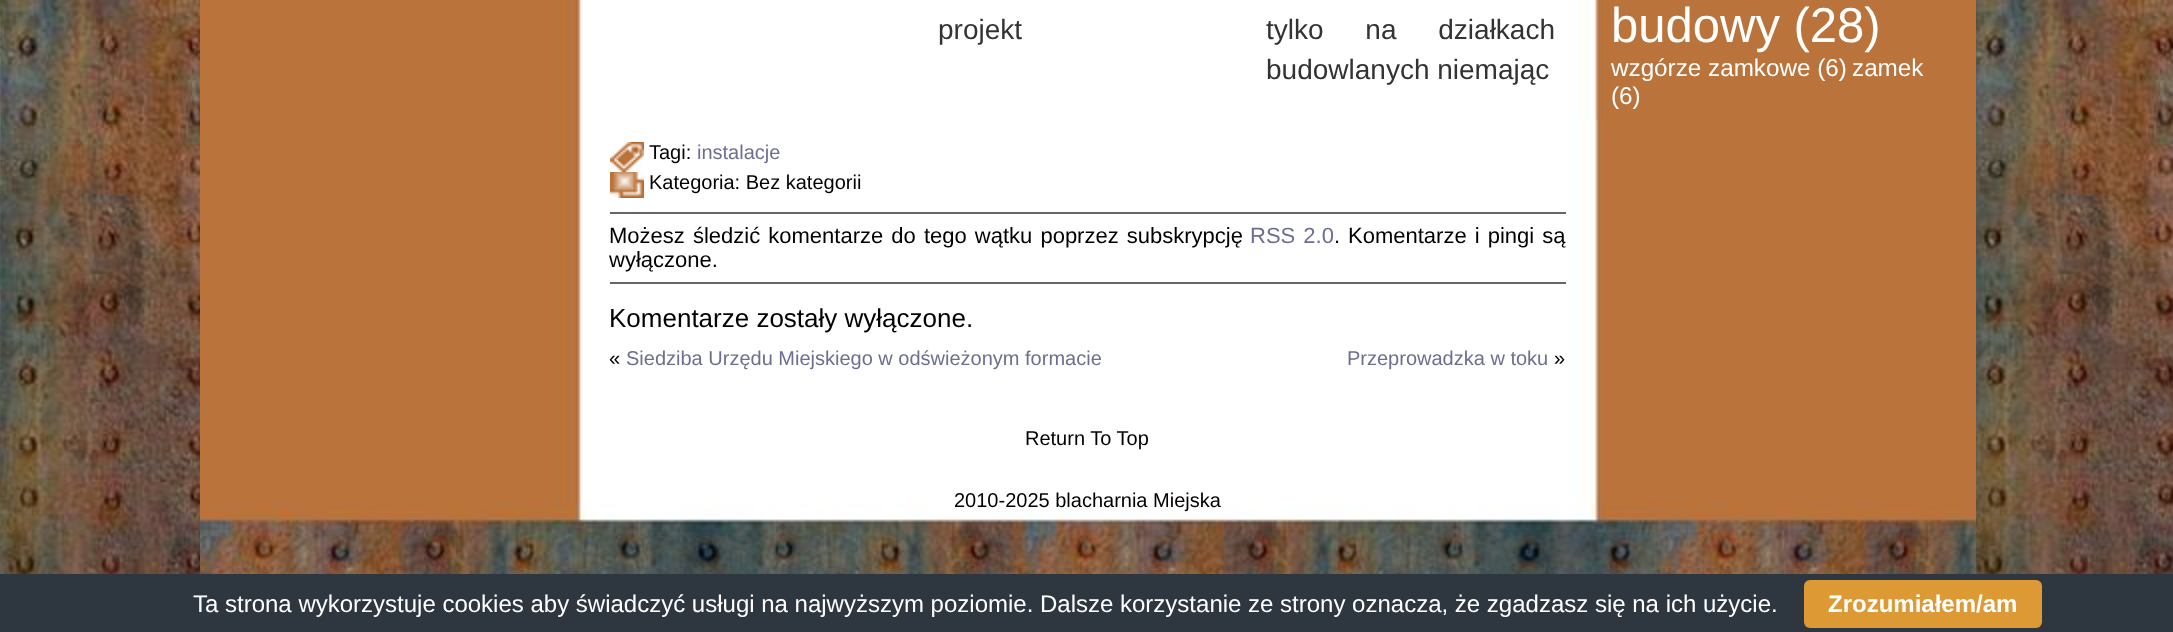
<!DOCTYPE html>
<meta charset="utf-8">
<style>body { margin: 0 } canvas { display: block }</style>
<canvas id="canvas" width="2173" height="632"></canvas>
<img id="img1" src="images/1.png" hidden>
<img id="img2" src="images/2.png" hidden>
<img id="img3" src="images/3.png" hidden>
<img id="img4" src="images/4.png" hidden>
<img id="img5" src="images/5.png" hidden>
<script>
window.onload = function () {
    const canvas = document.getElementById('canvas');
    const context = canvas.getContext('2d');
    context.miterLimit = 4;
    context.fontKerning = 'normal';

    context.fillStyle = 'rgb(255, 255, 255)';
    context.fillRect(0, 0, 2173, 632);
    context.drawImage(document.getElementById('img1'), 0, 0, 2173, 574);
    context.drawImage(document.getElementById('img2'), 200, 0, 1776, 120);
    context.drawImage(document.getElementById('img3'), 200, 120, 1776, 454);
    context.drawImage(document.getElementById('img4'), 610, 142, 34, 30);
    context.drawImage(document.getElementById('img5'), 610, 172, 34, 26);
    context.fillStyle = 'rgb(102, 102, 102)';
    context.fillRect(610, 212, 956, 2);
    context.fillRect(610, 282, 956, 2);
    context.fillStyle = 'rgb(46, 54, 63)';
    context.fillRect(0, 574, 2173, 58);
    context.fillStyle = 'rgb(221, 153, 51)';
    context.beginPath();
    context.roundRect(1804, 580, 238, 48, 6);
    context.fill();
    context.font = '28px Liberation Sans';
    context.fillStyle = 'rgb(51, 51, 51)';
    context.fillText('projekt', 938, 39);
    context.wordSpacing = '34px';
    context.fillText('tylko na działkach', 1266, 39);
    context.wordSpacing = '0px';
    context.fillText('budowlanych niemając', 1266, 79);
    context.font = '20px Liberation Sans';
    context.fillStyle = 'rgb(0, 0, 0)';
    context.fillText('Tagi:', 649, 159);
    context.fillStyle = 'rgb(109, 111, 146)';
    context.fillText('instalacje', 697, 159);
    context.fillStyle = 'rgb(0, 0, 0)';
    context.fillText('Kategoria: Bez kategorii', 649, 189);
    context.wordSpacing = '2px';
    context.font = '22px Liberation Sans';
    context.fillText('Możesz śledzić komentarze do tego wątku poprzez subskrypcję', 609, 243);
    context.fillStyle = 'rgb(109, 111, 146)';
    context.fillText('RSS 2.0', 1250, 243);
    context.wordSpacing = '0px';
    context.fillStyle = 'rgb(0, 0, 0)';
    context.fillText('.', 1334, 243);
    context.wordSpacing = '2px';
    context.fillText('Komentarze i pingi są', 1348, 243);
    context.wordSpacing = '0px';
    context.fillText('wyłączone.', 609, 267);
    context.font = '26px Liberation Sans';
    context.fillText('Komentarze zostały wyłączone.', 609, 327);
    context.font = '20px Liberation Sans';
    context.fillText('«', 609, 365);
    context.fillStyle = 'rgb(109, 111, 146)';
    context.fillText('Siedziba Urzędu Miejskiego w odświeżonym formacie', 626, 365);
    context.fillText('Przeprowadzka w toku', 1347, 365);
    context.fillStyle = 'rgb(0, 0, 0)';
    context.fillText('»', 1554, 365);
    context.font = '49px Liberation Sans';
    context.fillStyle = 'rgb(255, 255, 255)';
    context.fillText('budowy (28)', 1611, 42);
    context.font = '24.25px Liberation Sans';
    context.fillText('wzgórze zamkowe (6)', 1611, 76);
    context.fillText('zamek', 1852, 76);
    context.fillText('(6)', 1611, 104);
    context.font = '20px Liberation Sans';
    context.fillStyle = 'rgb(0, 0, 0)';
    context.fillText('Return To Top', 1025, 445);
    context.fillText('2010-2025 blacharnia Miejska', 954, 507);
    context.font = '24px Liberation Sans';
    context.fillStyle = 'rgb(255, 255, 255)';
    context.fillText('Ta strona wykorzystuje cookies aby świadczyć usługi na najwyższym poziomie. Dalsze korzystanie ze strony oznacza, że zgadzasz się na ich użycie.', 193, 612);
    context.font = 'bold 24px Liberation Sans';
    context.fillText('Zrozumiałem/am', 1828, 612);
};
</script>
